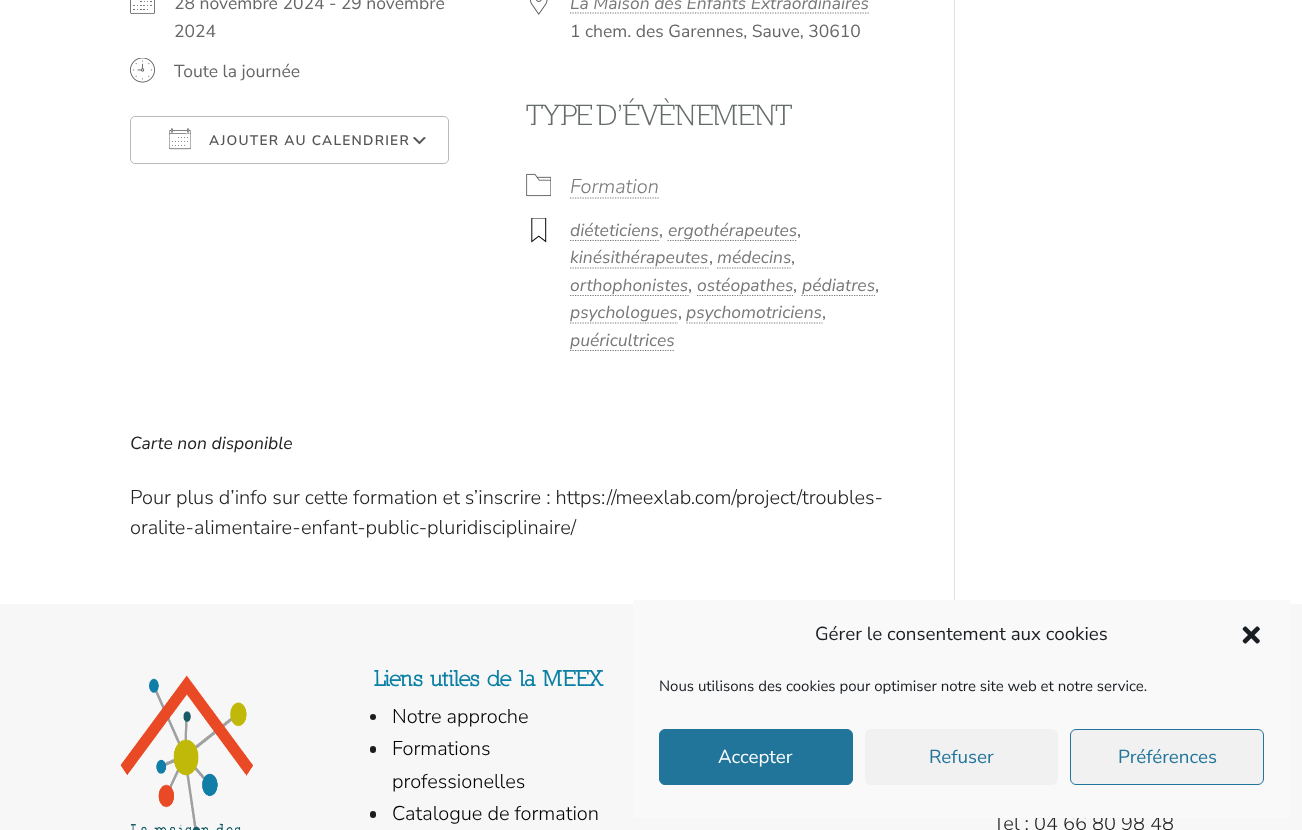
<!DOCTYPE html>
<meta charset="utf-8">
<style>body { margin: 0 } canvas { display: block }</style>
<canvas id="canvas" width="1302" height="830"></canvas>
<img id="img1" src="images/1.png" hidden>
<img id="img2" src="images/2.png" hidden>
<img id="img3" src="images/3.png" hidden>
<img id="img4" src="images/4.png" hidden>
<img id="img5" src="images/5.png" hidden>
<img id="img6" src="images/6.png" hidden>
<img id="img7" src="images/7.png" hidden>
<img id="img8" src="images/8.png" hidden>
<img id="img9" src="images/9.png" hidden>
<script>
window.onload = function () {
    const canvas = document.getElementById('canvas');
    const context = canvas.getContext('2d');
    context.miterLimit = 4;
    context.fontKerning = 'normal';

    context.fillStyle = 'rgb(255, 255, 255)';
    context.fillRect(0, 0, 1302, 830);
    context.drawImage(document.getElementById('img1'), 130, 0, 25, 14);
    context.drawImage(document.getElementById('img2'), 130, 58, 25, 25);
    context.drawImage(document.getElementById('img3'), 412, 137, 14, 8);
    context.beginPath();
    context.roundRect(130.5, 116.5, 318, 47, 4.5);
    context.strokeStyle = 'rgb(186, 186, 186)';
    context.stroke();
    context.drawImage(document.getElementById('img4'), 169, 128, 22, 22);
    context.drawImage(document.getElementById('img5'), 530, 0, 18, 15);
    context.beginPath();
    context.moveTo(570, 13);
    context.lineTo(869, 13);
    context.strokeStyle = 'rgb(120, 120, 120)';
    context.lineWidth = 1.2;
    context.setLineDash([1.25, 1.25]);
    context.stroke();
    context.drawImage(document.getElementById('img6'), 526, 173, 25, 24);
    context.beginPath();
    context.moveTo(570, 198);
    context.lineTo(659, 198);
    context.stroke();
    context.drawImage(document.getElementById('img7'), 531, 218, 16, 25);
    context.beginPath();
    context.moveTo(570, 240.5);
    context.lineTo(659, 240.5);
    context.stroke();
    context.beginPath();
    context.moveTo(667.5, 240.5);
    context.lineTo(797, 240.5);
    context.stroke();
    context.beginPath();
    context.moveTo(570, 268);
    context.lineTo(708.5, 268);
    context.stroke();
    context.beginPath();
    context.moveTo(717, 268);
    context.lineTo(791.5, 268);
    context.stroke();
    context.beginPath();
    context.moveTo(570, 295.5);
    context.lineTo(688.5, 295.5);
    context.stroke();
    context.beginPath();
    context.moveTo(697, 295.5);
    context.lineTo(793, 295.5);
    context.stroke();
    context.beginPath();
    context.moveTo(801.5, 295.5);
    context.lineTo(875, 295.5);
    context.stroke();
    context.beginPath();
    context.moveTo(570, 323);
    context.lineTo(678, 323);
    context.stroke();
    context.beginPath();
    context.moveTo(686.5, 323);
    context.lineTo(822.5, 323);
    context.stroke();
    context.beginPath();
    context.moveTo(570, 350.5);
    context.lineTo(675, 350.5);
    context.stroke();
    context.fillStyle = 'rgb(226, 226, 226)';
    context.fillRect(954, 0, 1, 604);
    context.fillStyle = 'rgb(247, 247, 247)';
    context.fillRect(0, 604, 1302, 226);
    context.drawImage(document.getElementById('img8'), 120, 675, 133, 155);
    context.fillStyle = 'rgb(28, 28, 28)';
    context.beginPath();
    context.arc(373, 717, 3, 0, 2 * Math.PI);
    context.fill();
    context.beginPath();
    context.roundRect(370, 746, 6, 7, 3);
    context.fill();
    context.beginPath();
    context.roundRect(370, 811, 6, 7, 3);
    context.fill();
    context.font = '17.5px Nunito Sans';
    context.fillStyle = 'rgb(102, 102, 102)';
    context.fillText('28 novembre 2024 - 29 novembre', 174, 9);
    context.fillText('2024', 174, 37);
    context.fillText('Toute la journée', 174, 77);
    context.letterSpacing = '1.25px';
    context.font = '600 13.75px Nunito Sans';
    context.fillStyle = 'rgb(84, 84, 84)';
    context.fillText('AJOUTER AU CALENDRIER', 209, 145);
    context.letterSpacing = '0px';
    context.font = 'italic 17.5px Nunito Sans';
    context.fillStyle = 'rgb(120, 120, 120)';
    context.fillText('La Maison des Enfants Extraordinaires', 570, 9);
    context.font = '17.5px Nunito Sans';
    context.fillStyle = 'rgb(102, 102, 102)';
    context.fillText('1 chem. des Garennes, Sauve, 30610', 570, 37);
    context.letterSpacing = '-1.25px';
    context.wordSpacing = '-2px';
    context.font = '30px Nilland';
    context.fillStyle = 'rgb(102, 108, 108)';
    context.fillText('TYPE D’ÉVÈNEMENT', 526, 125);
    context.letterSpacing = '0px';
    context.wordSpacing = '0px';
    context.font = 'italic 300 20px Nunito Sans';
    context.fillStyle = 'rgb(120, 120, 120)';
    context.fillText('Formation', 570, 193);
    context.font = 'italic 17.5px Nunito Sans';
    context.fillText('diéteticiens', 570, 236);
    context.font = '17.5px Nunito Sans';
    context.fillStyle = 'rgb(102, 102, 102)';
    context.fillText(',', 659, 236);
    context.font = 'italic 17.5px Nunito Sans';
    context.fillStyle = 'rgb(120, 120, 120)';
    context.fillText('ergothérapeutes', 668, 236);
    context.font = '17.5px Nunito Sans';
    context.fillStyle = 'rgb(102, 102, 102)';
    context.fillText(',', 797, 236);
    context.font = 'italic 17.5px Nunito Sans';
    context.fillStyle = 'rgb(120, 120, 120)';
    context.fillText('kinésithérapeutes', 570, 263);
    context.font = '17.5px Nunito Sans';
    context.fillStyle = 'rgb(102, 102, 102)';
    context.fillText(',', 709, 263);
    context.font = 'italic 17.5px Nunito Sans';
    context.fillStyle = 'rgb(120, 120, 120)';
    context.fillText('médecins', 717, 263);
    context.font = '17.5px Nunito Sans';
    context.fillStyle = 'rgb(102, 102, 102)';
    context.fillText(',', 791, 263);
    context.font = 'italic 17.5px Nunito Sans';
    context.fillStyle = 'rgb(120, 120, 120)';
    context.fillText('orthophonistes', 570, 291);
    context.font = '17.5px Nunito Sans';
    context.fillStyle = 'rgb(102, 102, 102)';
    context.fillText(',', 688, 291);
    context.font = 'italic 17.5px Nunito Sans';
    context.fillStyle = 'rgb(120, 120, 120)';
    context.fillText('ostéopathes', 697, 291);
    context.font = '17.5px Nunito Sans';
    context.fillStyle = 'rgb(102, 102, 102)';
    context.fillText(',', 793, 291);
    context.font = 'italic 17.5px Nunito Sans';
    context.fillStyle = 'rgb(120, 120, 120)';
    context.fillText('pédiatres', 802, 291);
    context.font = '17.5px Nunito Sans';
    context.fillStyle = 'rgb(102, 102, 102)';
    context.fillText(',', 875, 291);
    context.font = 'italic 17.5px Nunito Sans';
    context.fillStyle = 'rgb(120, 120, 120)';
    context.fillText('psychologues', 570, 318);
    context.font = '17.5px Nunito Sans';
    context.fillStyle = 'rgb(102, 102, 102)';
    context.fillText(',', 678, 318);
    context.font = 'italic 17.5px Nunito Sans';
    context.fillStyle = 'rgb(120, 120, 120)';
    context.fillText('psychomotriciens', 686, 318);
    context.font = '17.5px Nunito Sans';
    context.fillStyle = 'rgb(102, 102, 102)';
    context.fillText(',', 822, 318);
    context.font = 'italic 17.5px Nunito Sans';
    context.fillStyle = 'rgb(120, 120, 120)';
    context.fillText('puéricultrices', 570, 346);
    context.fillStyle = 'rgb(33, 33, 33)';
    context.fillText('Carte non disponible', 130, 449);
    context.font = '300 20px Nunito Sans';
    context.fillText('Pour plus d’info sur cette formation et s’inscrire : https://meexlab.com/project/troubles-', 130, 504);
    context.fillText('oralite-alimentaire-enfant-public-pluridisciplinaire/', 130, 534);
    context.wordSpacing = '1.5px';
    context.font = 'bold 22.5px Nilland';
    context.fillStyle = 'rgb(12, 128, 164)';
    context.fillText('Liens utiles de la MEEX', 374, 686);
    context.wordSpacing = '0px';
    context.font = '300 20px Nunito Sans';
    context.fillStyle = 'rgb(0, 0, 0)';
    context.fillText('Notre approche', 392, 723);
    context.fillText('Formations', 392, 755);
    context.fillText('professionelles', 392, 788);
    context.fillText('Catalogue de formation', 392, 820);
    context.fillStyle = 'rgb(33, 33, 33)';
    context.fillText('Tel : 04 66 80 98 48', 993, 830);
    context.fillStyle = 'rgb(249, 249, 249)';
    context.fillRect(633, 600, 657, 218);
    context.font = '18.75px Nunito Sans';
    context.fillStyle = 'rgb(25, 30, 35)';
    context.fillText('Gérer le consentement aux cookies', 815, 640);
    context.drawImage(document.getElementById('img9'), 1242, 626, 18, 18);
    context.font = '15px Nunito Sans';
    context.fillText('Nous utilisons des cookies pour optimiser notre site web et notre service.', 659, 691);
    context.fillStyle = 'rgb(33, 117, 155)';
    context.beginPath();
    context.roundRect(659.5, 729.5, 193, 55, 5.5);
    context.fill();
    context.strokeStyle = 'rgb(33, 117, 155)';
    context.lineWidth = 1;
    context.setLineDash([]);
    context.stroke();
    context.font = '18.75px Nunito Sans';
    context.fillStyle = 'rgb(255, 255, 255)';
    context.fillText('Accepter', 718, 763);
    context.fillStyle = 'rgb(241, 241, 241)';
    context.beginPath();
    context.roundRect(865, 729, 193, 56, 6);
    context.fill();
    context.fillStyle = 'rgb(33, 117, 155)';
    context.fillText('Refuser', 929, 763);
    context.fillStyle = 'rgb(241, 241, 241)';
    context.beginPath();
    context.roundRect(1070.5, 729.5, 193, 55, 5.5);
    context.fill();
    context.stroke();
    context.fillStyle = 'rgb(33, 117, 155)';
    context.fillText('Préférences', 1118, 763);
};
</script>
